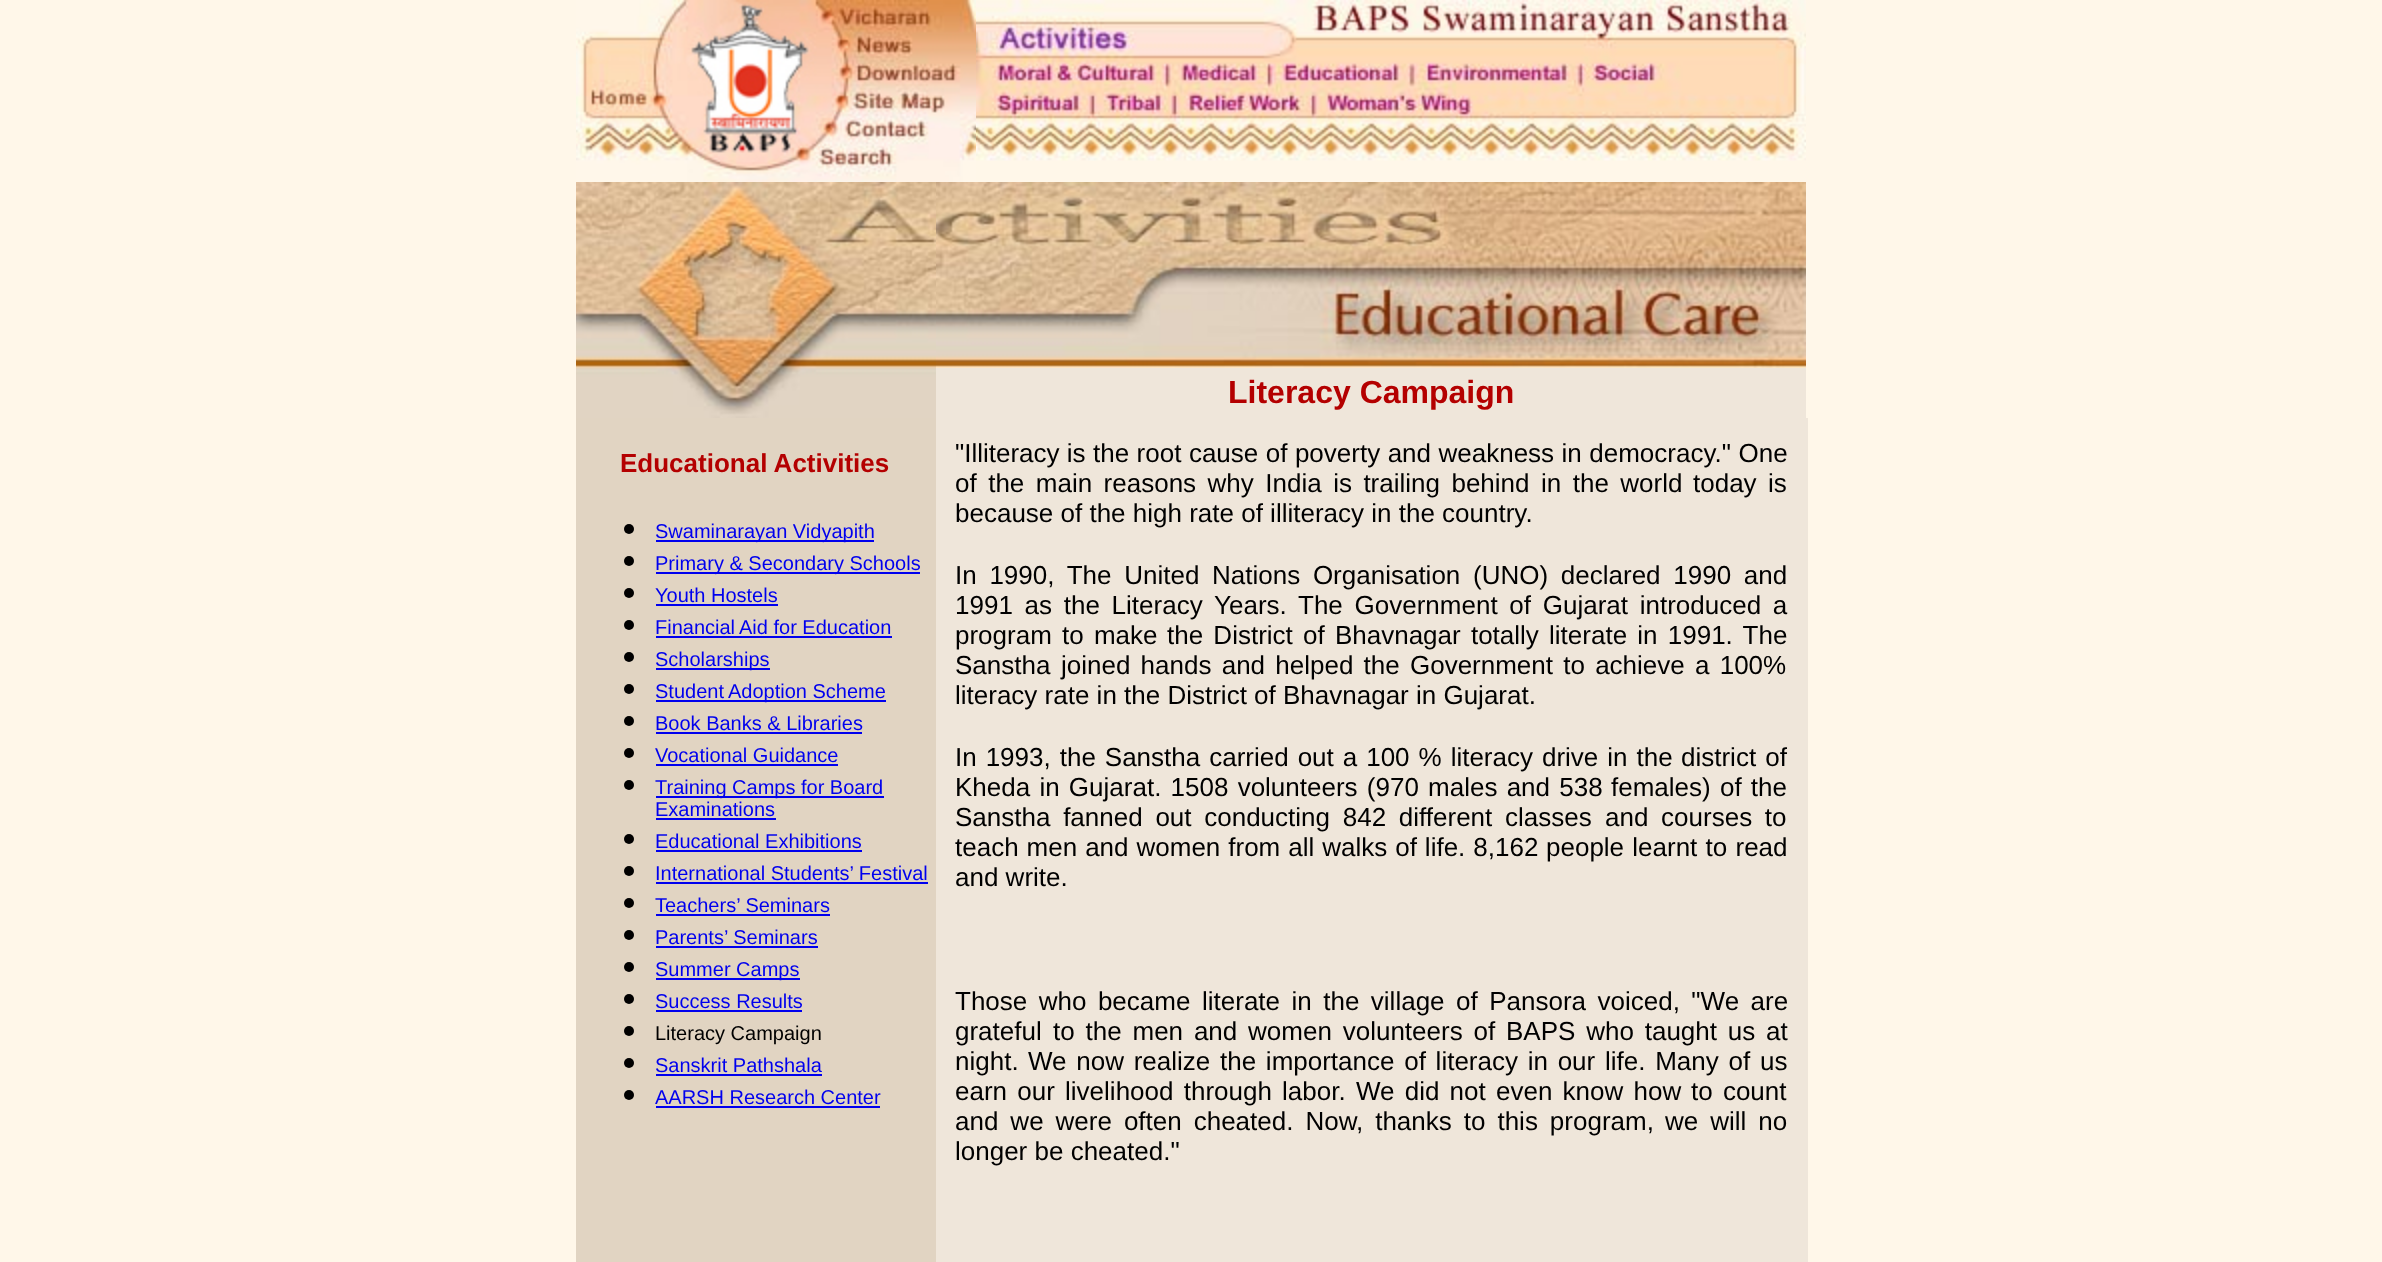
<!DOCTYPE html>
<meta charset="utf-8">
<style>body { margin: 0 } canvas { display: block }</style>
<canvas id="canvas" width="2382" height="1262"></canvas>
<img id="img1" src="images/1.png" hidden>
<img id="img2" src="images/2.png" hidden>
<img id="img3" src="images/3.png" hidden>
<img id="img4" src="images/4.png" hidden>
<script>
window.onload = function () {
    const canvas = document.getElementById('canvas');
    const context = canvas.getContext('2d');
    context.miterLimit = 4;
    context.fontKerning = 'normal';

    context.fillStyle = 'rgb(255, 247, 233)';
    context.fillRect(0, 0, 2382, 1262);
    context.drawImage(document.getElementById('img1'), 576, 0, 400, 182);
    context.drawImage(document.getElementById('img2'), 976, 0, 830, 161);
    context.drawImage(document.getElementById('img3'), 576, 182, 360, 236);
    context.drawImage(document.getElementById('img4'), 936, 182, 870, 186);
    context.fillStyle = 'rgb(239, 230, 218)';
    context.fillRect(936, 368, 870, 50);
    context.fillStyle = 'rgb(225, 212, 194)';
    context.fillRect(576, 418, 360, 844);
    context.fillStyle = 'rgb(0, 0, 0)';
    context.beginPath();
    context.arc(629, 529, 5, 0, 2 * Math.PI);
    context.fill();
    context.fillStyle = 'rgb(0, 0, 238)';
    context.fillRect(656, 540, 218, 2);
    context.fillStyle = 'rgb(0, 0, 0)';
    context.beginPath();
    context.arc(629, 561, 5, 0, 2 * Math.PI);
    context.fill();
    context.fillStyle = 'rgb(0, 0, 238)';
    context.fillRect(656, 572, 264, 2);
    context.fillStyle = 'rgb(0, 0, 0)';
    context.beginPath();
    context.arc(629, 593, 5, 0, 2 * Math.PI);
    context.fill();
    context.fillStyle = 'rgb(0, 0, 238)';
    context.fillRect(656, 604, 122, 2);
    context.fillStyle = 'rgb(0, 0, 0)';
    context.beginPath();
    context.arc(629, 625, 5, 0, 2 * Math.PI);
    context.fill();
    context.fillStyle = 'rgb(0, 0, 238)';
    context.fillRect(656, 636, 236, 2);
    context.fillStyle = 'rgb(0, 0, 0)';
    context.beginPath();
    context.arc(629, 657, 5, 0, 2 * Math.PI);
    context.fill();
    context.fillStyle = 'rgb(0, 0, 238)';
    context.fillRect(656, 668, 114, 2);
    context.fillStyle = 'rgb(0, 0, 0)';
    context.beginPath();
    context.arc(629, 689, 5, 0, 2 * Math.PI);
    context.fill();
    context.fillStyle = 'rgb(0, 0, 238)';
    context.fillRect(656, 700, 230, 2);
    context.fillStyle = 'rgb(0, 0, 0)';
    context.beginPath();
    context.arc(629, 721, 5, 0, 2 * Math.PI);
    context.fill();
    context.fillStyle = 'rgb(0, 0, 238)';
    context.fillRect(656, 732, 206, 2);
    context.fillStyle = 'rgb(0, 0, 0)';
    context.beginPath();
    context.arc(629, 753, 5, 0, 2 * Math.PI);
    context.fill();
    context.fillStyle = 'rgb(0, 0, 238)';
    context.fillRect(656, 764, 182, 2);
    context.fillStyle = 'rgb(0, 0, 0)';
    context.beginPath();
    context.arc(629, 785, 5, 0, 2 * Math.PI);
    context.fill();
    context.fillStyle = 'rgb(0, 0, 238)';
    context.fillRect(656, 796, 228, 2);
    context.fillRect(656, 818, 120, 2);
    context.fillStyle = 'rgb(0, 0, 0)';
    context.beginPath();
    context.arc(629, 839, 5, 0, 2 * Math.PI);
    context.fill();
    context.fillStyle = 'rgb(0, 0, 238)';
    context.fillRect(656, 850, 206, 2);
    context.fillStyle = 'rgb(0, 0, 0)';
    context.beginPath();
    context.arc(629, 871, 5, 0, 2 * Math.PI);
    context.fill();
    context.fillStyle = 'rgb(0, 0, 238)';
    context.fillRect(656, 882, 272, 2);
    context.fillStyle = 'rgb(0, 0, 0)';
    context.beginPath();
    context.arc(629, 903, 5, 0, 2 * Math.PI);
    context.fill();
    context.fillStyle = 'rgb(0, 0, 238)';
    context.fillRect(656, 914, 174, 2);
    context.fillStyle = 'rgb(0, 0, 0)';
    context.beginPath();
    context.arc(629, 935, 5, 0, 2 * Math.PI);
    context.fill();
    context.fillStyle = 'rgb(0, 0, 238)';
    context.fillRect(656, 946, 162, 2);
    context.fillStyle = 'rgb(0, 0, 0)';
    context.beginPath();
    context.arc(629, 967, 5, 0, 2 * Math.PI);
    context.fill();
    context.fillStyle = 'rgb(0, 0, 238)';
    context.fillRect(656, 978, 144, 2);
    context.fillStyle = 'rgb(0, 0, 0)';
    context.beginPath();
    context.arc(629, 999, 5, 0, 2 * Math.PI);
    context.fill();
    context.fillStyle = 'rgb(0, 0, 238)';
    context.fillRect(656, 1010, 146, 2);
    context.fillStyle = 'rgb(0, 0, 0)';
    context.beginPath();
    context.arc(629, 1031, 5, 0, 2 * Math.PI);
    context.fill();
    context.beginPath();
    context.arc(629, 1063, 5, 0, 2 * Math.PI);
    context.fill();
    context.fillStyle = 'rgb(0, 0, 238)';
    context.fillRect(656, 1074, 166, 2);
    context.fillStyle = 'rgb(0, 0, 0)';
    context.beginPath();
    context.arc(629, 1095, 5, 0, 2 * Math.PI);
    context.fill();
    context.fillStyle = 'rgb(0, 0, 238)';
    context.fillRect(656, 1106, 224, 2);
    context.fillStyle = 'rgb(239, 230, 218)';
    context.fillRect(936, 418, 872, 844);
    context.font = 'bold 32px Liberation Sans';
    context.fillStyle = 'rgb(180, 0, 0)';
    context.fillText('Literacy Campaign', 1228, 403);
    context.font = 'bold 26px Liberation Sans';
    context.fillText('Educational Activities', 620, 472);
    context.font = '20px Liberation Sans';
    context.fillStyle = 'rgb(0, 0, 238)';
    context.fillText('Swaminarayan Vidyapith', 655, 538);
    context.fillText('Primary & Secondary Schools', 655, 570);
    context.fillText('Youth Hostels', 655, 602);
    context.fillText('Financial', 655, 634);
    context.fillText('Aid for Education', 739, 634);
    context.fillText('Scholarships', 655, 666);
    context.fillText('Student', 655, 698);
    context.fillText('Adoption Scheme', 728, 698);
    context.fillText('Book Banks & Libraries', 655, 730);
    context.fillText('Vocational Guidance', 655, 762);
    context.fillText('Training Camps for Board', 655, 794);
    context.fillText('Examinations', 655, 816);
    context.fillText('Educational Exhibitions', 655, 848);
    context.fillText('International Students’ Festival', 655, 880);
    context.fillText('Teachers’ Seminars', 655, 912);
    context.fillText('Parents’ Seminars', 655, 944);
    context.fillText('Summer Camps', 655, 976);
    context.fillText('Success Results', 655, 1008);
    context.fillStyle = 'rgb(0, 0, 0)';
    context.fillText('Literacy Campaign', 655, 1040);
    context.fillStyle = 'rgb(0, 0, 238)';
    context.fillText('Sanskrit Pathshala', 655, 1072);
    context.fillText('AARSH Research Center', 655, 1104);
    context.font = '26px Liberation Sans';
    context.fillStyle = 'rgb(0, 0, 0)';
    context.fillText('"Illiteracy is', 955, 462);
    context.wordSpacing = '0.25px';
    context.fillText('the root cause of poverty and weakness in democracy." One', 1093, 462);
    context.wordSpacing = '4.25px';
    context.fillText('of the main reasons why India is trailing behind in the world', 955, 492);
    context.fillText('today is', 1693, 492);
    context.wordSpacing = '0px';
    context.fillText('because of the high rate of illiteracy in the country.', 955, 522);
    context.wordSpacing = '5.5px';
    context.fillText('In 1990, The United', 955, 584);
    context.fillText('Nations Organisation (UNO) declared 1990 and', 1212, 584);
    context.wordSpacing = '4.5px';
    context.fillText('1991 as the Literacy', 955, 614);
    context.fillText('Years. The Government of Gujarat introduced a', 1214, 614);
    context.wordSpacing = '3px';
    context.fillText('program to make', 955, 644);
    context.fillText('the District of Bhavnagar totally literate in 1991. The', 1167, 644);
    context.wordSpacing = '0px';
    context.fillText('Sanstha', 955, 674);
    context.wordSpacing = '3px';
    context.fillText('joined hands and helped the Government to achieve a 100%', 1061, 674);
    context.wordSpacing = '0px';
    context.fillText('literacy rate in the District of Bhavnagar in Gujarat.', 955, 704);
    context.wordSpacing = '1.75px';
    context.fillText('In 1993, the Sanstha carried out a 100 % literacy drive in the', 955, 766);
    context.wordSpacing = '2px';
    context.fillText('district of', 1681, 766);
    context.fillText('Kheda in Gujarat. 1508 volunteers (970 males and 538', 955, 796);
    context.fillText('females) of the', 1611, 796);
    context.wordSpacing = '5.5px';
    context.fillText('Sanstha fanned out conducting 842 different classes', 955, 826);
    context.fillText('and courses to', 1605, 826);
    context.wordSpacing = '0.75px';
    context.fillText('teach men and women from all walks of life. 8,162', 955, 856);
    context.wordSpacing = '1px';
    context.fillText('people learnt to read', 1546, 856);
    context.wordSpacing = '0px';
    context.fillText('and write.', 955, 886);
    context.wordSpacing = '4.25px';
    context.fillText('Those who became', 955, 1010);
    context.fillText('literate in the village of Pansora voiced, "We are', 1202, 1010);
    context.wordSpacing = '0px';
    context.fillText('grateful', 955, 1040);
    context.wordSpacing = '3.6px';
    context.fillText('to the men and women volunteers of BAPS who taught us at', 1053, 1040);
    context.wordSpacing = '0px';
    context.fillText('night.', 955, 1070);
    context.wordSpacing = '2.5px';
    context.fillText('We now realize the importance of literacy in our life. Many of', 1028, 1070);
    context.wordSpacing = '0px';
    context.fillText('us', 1760, 1070);
    context.wordSpacing = '3px';
    context.fillText('earn our livelihood through labor. We did not even know how', 955, 1100);
    context.fillText('to count', 1691, 1100);
    context.wordSpacing = '4.75px';
    context.fillText('and we were often cheated. Now, thanks to this program,', 955, 1130);
    context.fillText('we will no', 1665, 1130);
    context.wordSpacing = '0px';
    context.fillText('longer be cheated."', 955, 1160);
};
</script>
